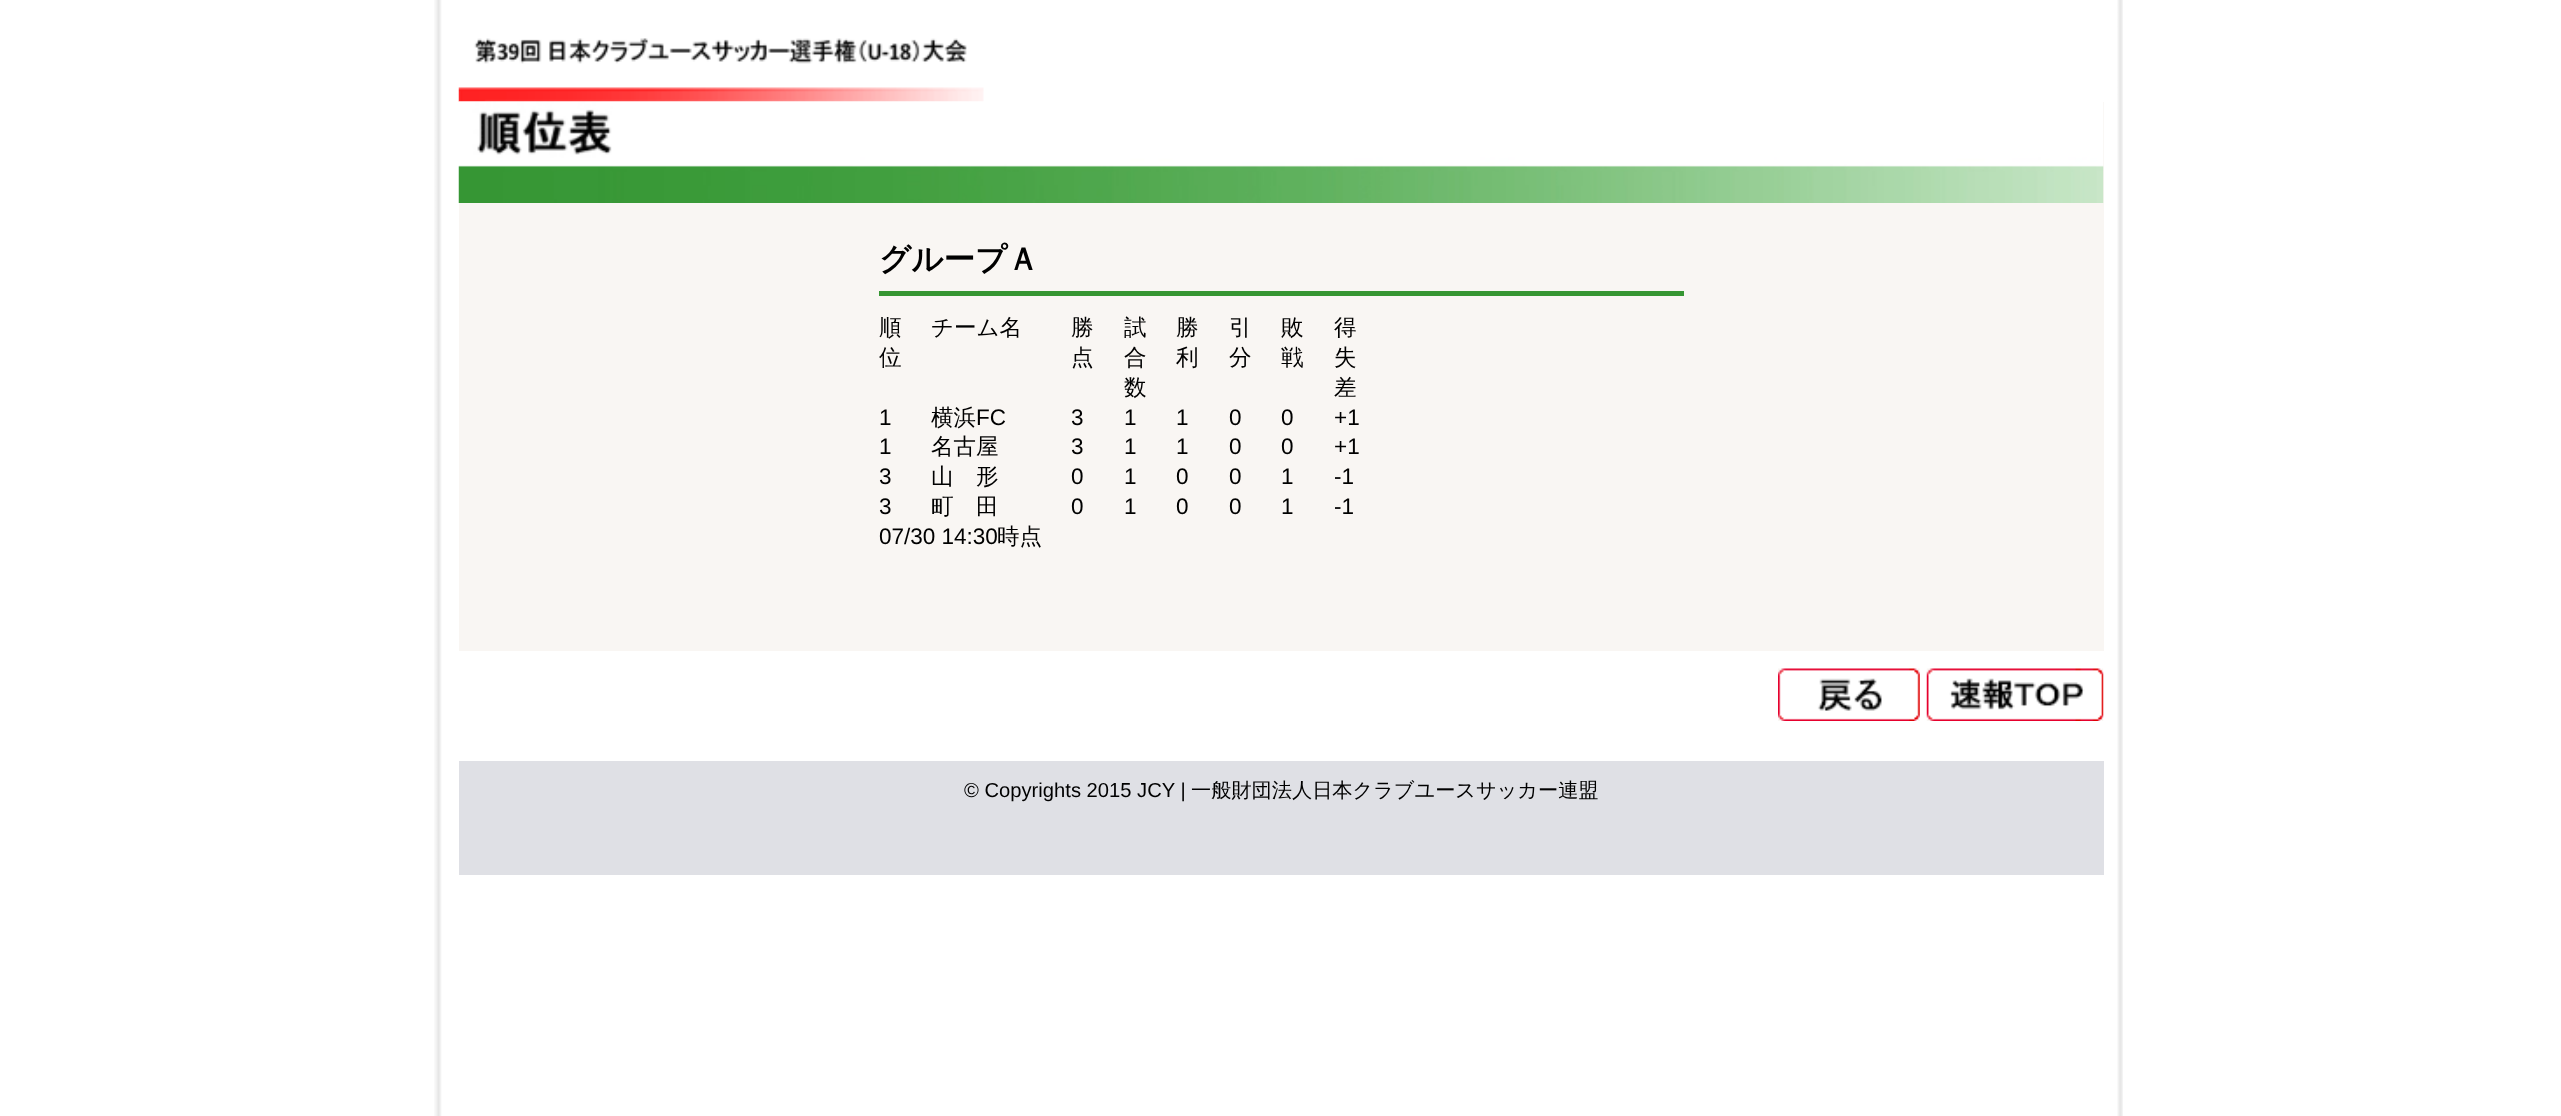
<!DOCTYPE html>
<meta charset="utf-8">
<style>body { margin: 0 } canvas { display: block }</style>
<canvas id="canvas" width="2561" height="1116"></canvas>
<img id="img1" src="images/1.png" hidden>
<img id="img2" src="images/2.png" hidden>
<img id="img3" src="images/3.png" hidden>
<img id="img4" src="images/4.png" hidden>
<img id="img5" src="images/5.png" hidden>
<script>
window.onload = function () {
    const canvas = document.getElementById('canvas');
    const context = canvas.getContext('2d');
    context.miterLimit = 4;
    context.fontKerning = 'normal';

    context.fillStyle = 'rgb(255, 255, 255)';
    context.fillRect(0, 0, 2561, 1116);
    context.drawImage(document.getElementById('img1'), 434, 0, 1689, 1116);
    context.drawImage(document.getElementById('img2'), 458, 38, 526, 64);
    context.fillStyle = 'rgb(249, 246, 243)';
    context.fillRect(459, 102, 1645, 549);
    context.drawImage(document.getElementById('img3'), 458, 101, 1646, 102);
    context.fillStyle = 'rgb(54, 150, 50)';
    context.fillRect(879, 291, 805, 5);
    context.drawImage(document.getElementById('img4'), 1778, 668, 142, 53);
    context.drawImage(document.getElementById('img5'), 1926, 668, 178, 53);
    context.fillStyle = 'rgb(223, 224, 229)';
    context.fillRect(459, 761, 1645, 114);
    context.font = 'bold 31.5px WenQuanYi Zen Hei';
    context.fillStyle = 'rgb(0, 0, 0)';
    context.fillText('グループＡ', 879, 270);
    context.font = '500 22.5px WenQuanYi Zen Hei';
    context.fillText('順', 879, 335);
    context.fillText('位', 879, 365);
    context.fillText('チーム名', 931, 335);
    context.fillText('勝', 1071, 335);
    context.fillText('点', 1071, 365);
    context.fillText('試', 1124, 335);
    context.fillText('合', 1124, 365);
    context.fillText('数', 1124, 395);
    context.fillText('勝', 1176, 335);
    context.fillText('利', 1176, 365);
    context.fillText('引', 1229, 335);
    context.fillText('分', 1229, 365);
    context.fillText('敗', 1281, 335);
    context.fillText('戦', 1281, 365);
    context.fillText('得', 1334, 335);
    context.fillText('失', 1334, 365);
    context.fillText('差', 1334, 395);
    context.font = '22.5px Liberation Sans';
    context.fillText('1', 879, 425);
    context.font = '500 22.5px WenQuanYi Zen Hei';
    context.fillText('横浜', 931, 425);
    context.font = '22.5px Liberation Sans';
    context.fillText('FC', 976, 425);
    context.fillText('3', 1071, 425);
    context.fillText('1', 1124, 425);
    context.fillText('1', 1176, 425);
    context.fillText('0', 1229, 425);
    context.fillText('0', 1281, 425);
    context.fillText('+1', 1334, 425);
    context.fillText('1', 879, 454);
    context.font = '500 22.5px WenQuanYi Zen Hei';
    context.fillText('名古屋', 931, 454);
    context.font = '22.5px Liberation Sans';
    context.fillText('3', 1071, 454);
    context.fillText('1', 1124, 454);
    context.fillText('1', 1176, 454);
    context.fillText('0', 1229, 454);
    context.fillText('0', 1281, 454);
    context.fillText('+1', 1334, 454);
    context.fillText('3', 879, 484);
    context.font = '500 22.5px WenQuanYi Zen Hei';
    context.fillText('山　形', 931, 484);
    context.font = '22.5px Liberation Sans';
    context.fillText('0', 1071, 484);
    context.fillText('1', 1124, 484);
    context.fillText('0', 1176, 484);
    context.fillText('0', 1229, 484);
    context.fillText('1', 1281, 484);
    context.fillText('-1', 1334, 484);
    context.fillText('3', 879, 514);
    context.font = '500 22.5px WenQuanYi Zen Hei';
    context.fillText('町　田', 931, 514);
    context.font = '22.5px Liberation Sans';
    context.fillText('0', 1071, 514);
    context.fillText('1', 1124, 514);
    context.fillText('0', 1176, 514);
    context.fillText('0', 1229, 514);
    context.fillText('1', 1281, 514);
    context.fillText('-1', 1334, 514);
    context.fillText('07/30 14:30', 879, 544);
    context.font = '500 22.5px WenQuanYi Zen Hei';
    context.fillText('時点', 997, 544);
    context.font = '20.2px Liberation Sans';
    context.fillText('© Copyrights 2015 JCY |', 964, 797);
    context.font = '500 20.2px WenQuanYi Zen Hei';
    context.fillText('一般財団法人日本クラブユースサッカー連盟', 1191, 797);
};
</script>
